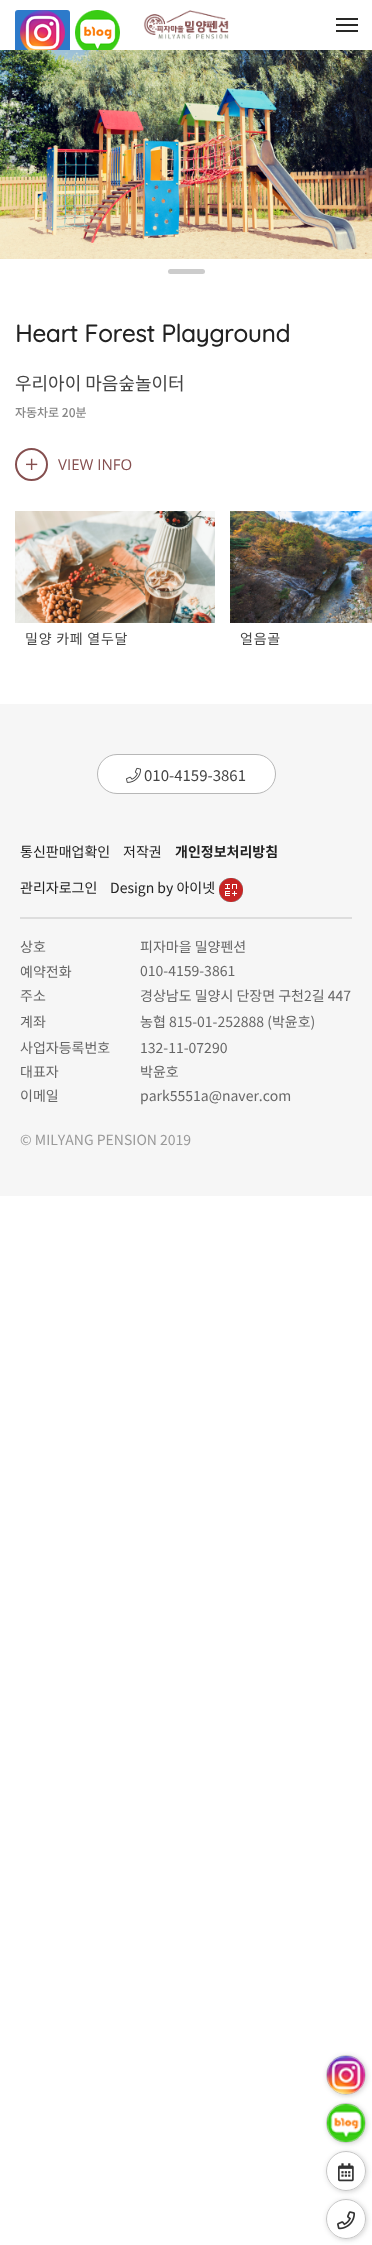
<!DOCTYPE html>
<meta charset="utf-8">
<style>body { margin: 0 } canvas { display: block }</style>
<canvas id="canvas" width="372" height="2245"></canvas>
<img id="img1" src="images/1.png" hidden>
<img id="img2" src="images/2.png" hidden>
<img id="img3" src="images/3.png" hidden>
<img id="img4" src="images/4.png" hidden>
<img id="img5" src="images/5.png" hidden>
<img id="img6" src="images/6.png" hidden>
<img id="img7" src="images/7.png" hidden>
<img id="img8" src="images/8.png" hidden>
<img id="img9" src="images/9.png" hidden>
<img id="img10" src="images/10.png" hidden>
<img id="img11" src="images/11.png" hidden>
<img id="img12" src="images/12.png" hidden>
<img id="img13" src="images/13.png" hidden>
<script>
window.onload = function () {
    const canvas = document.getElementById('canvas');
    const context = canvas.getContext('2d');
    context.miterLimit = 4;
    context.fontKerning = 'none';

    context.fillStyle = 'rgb(255, 255, 255)';
    context.fillRect(0, 0, 372, 2245);
    context.fillStyle = 'rgb(45, 122, 202)';
    context.beginPath();
    context.roundRect(15, 10, 55, 40, [3, 3, 0, 0]);
    context.fill();
    context.drawImage(document.getElementById('img1'), 20, 10, 45, 40);
    context.drawImage(document.getElementById('img2'), 75, 10, 45, 40);
    context.drawImage(document.getElementById('img3'), 143, 10, 86, 30);
    context.fillStyle = 'rgb(40, 40, 38)';
    context.fillRect(336, 18, 22, 2);
    context.fillRect(336, 24, 22, 2);
    context.fillRect(336, 30, 22, 2);
    context.drawImage(document.getElementById('img4'), 0, 50, 372, 209);
    context.fillStyle = 'rgb(204, 204, 204)';
    context.beginPath();
    context.roundRect(168, 269, 37, 5, 2.5);
    context.fill();
    context.beginPath();
    context.arc(31.5, 464.5, 15.5, 0, 2 * Math.PI);
    context.strokeStyle = 'rgb(133, 79, 79)';
    context.lineWidth = 2;
    context.stroke();
    context.drawImage(document.getElementById('img5'), 26, 458, 12, 12);
    context.drawImage(document.getElementById('img6'), 15, 511, 200, 112);
    context.drawImage(document.getElementById('img7'), 230, 511, 142, 112);
    context.fillStyle = 'rgb(246, 246, 246)';
    context.fillRect(0, 704, 372, 492);
    context.fillStyle = 'rgb(255, 255, 255)';
    context.beginPath();
    context.roundRect(97.5, 754.5, 178, 39, 19.5);
    context.fill();
    context.strokeStyle = 'rgb(183, 183, 183)';
    context.lineWidth = 1;
    context.stroke();
    context.drawImage(document.getElementById('img8'), 126, 767, 15, 16);
    context.fillStyle = 'rgb(221, 221, 221)';
    context.fillRect(20, 917, 332, 2);
    context.drawImage(document.getElementById('img9'), 219, 878, 24, 24);
    context.save();
    context.beginPath();
    context.moveTo(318, 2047);
    context.lineTo(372, 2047);
    context.lineTo(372, 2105);
    context.lineTo(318, 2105);
    context.closePath();
    context.moveTo(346, 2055);
    context.bezierCurveTo(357, 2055, 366, 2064, 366, 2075);
    context.bezierCurveTo(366, 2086, 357, 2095, 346, 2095);
    context.bezierCurveTo(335, 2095, 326, 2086, 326, 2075);
    context.bezierCurveTo(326, 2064, 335, 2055, 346, 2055);
    context.closePath();
    context.clip('evenodd');
    context.fillStyle = 'rgba(36, 36, 36, 0.2)';
    context.filter = 'blur(2.5px)';
    context.beginPath();
    context.roundRect(327, 2056, 40, 40, 20);
    context.fill();
    context.filter = 'none';
    context.restore();
    context.fillStyle = 'rgba(255, 255, 255, 0.8)';
    context.beginPath();
    context.arc(346, 2075, 19.5, 0, 2 * Math.PI);
    context.fill();
    context.strokeStyle = 'rgb(198, 198, 198)';
    context.stroke();
    context.drawImage(document.getElementById('img10'), 327, 2056, 38, 38);
    context.save();
    context.beginPath();
    context.moveTo(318, 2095);
    context.lineTo(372, 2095);
    context.lineTo(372, 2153);
    context.lineTo(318, 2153);
    context.closePath();
    context.moveTo(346, 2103);
    context.bezierCurveTo(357, 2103, 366, 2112, 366, 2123);
    context.bezierCurveTo(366, 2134, 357, 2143, 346, 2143);
    context.bezierCurveTo(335, 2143, 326, 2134, 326, 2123);
    context.bezierCurveTo(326, 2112, 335, 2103, 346, 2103);
    context.closePath();
    context.clip('evenodd');
    context.fillStyle = 'rgba(36, 36, 36, 0.2)';
    context.filter = 'blur(2.5px)';
    context.beginPath();
    context.roundRect(327, 2104, 40, 40, 20);
    context.fill();
    context.filter = 'none';
    context.restore();
    context.beginPath();
    context.arc(346, 2123, 19.5, 0, 2 * Math.PI);
    context.fill();
    context.stroke();
    context.drawImage(document.getElementById('img11'), 327, 2104, 38, 38);
    context.save();
    context.beginPath();
    context.moveTo(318, 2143);
    context.lineTo(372, 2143);
    context.lineTo(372, 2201);
    context.lineTo(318, 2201);
    context.closePath();
    context.moveTo(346, 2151);
    context.bezierCurveTo(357, 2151, 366, 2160, 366, 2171);
    context.bezierCurveTo(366, 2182, 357, 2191, 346, 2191);
    context.bezierCurveTo(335, 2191, 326, 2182, 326, 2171);
    context.bezierCurveTo(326, 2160, 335, 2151, 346, 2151);
    context.closePath();
    context.clip('evenodd');
    context.fillStyle = 'rgba(36, 36, 36, 0.2)';
    context.filter = 'blur(2.5px)';
    context.beginPath();
    context.roundRect(327, 2152, 40, 40, 20);
    context.fill();
    context.filter = 'none';
    context.restore();
    context.beginPath();
    context.arc(346, 2171, 19.5, 0, 2 * Math.PI);
    context.fill();
    context.stroke();
    context.drawImage(document.getElementById('img12'), 338, 2163, 16, 19);
    context.save();
    context.beginPath();
    context.moveTo(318, 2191);
    context.lineTo(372, 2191);
    context.lineTo(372, 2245);
    context.lineTo(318, 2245);
    context.closePath();
    context.moveTo(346, 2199);
    context.bezierCurveTo(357, 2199, 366, 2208, 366, 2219);
    context.bezierCurveTo(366, 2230, 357, 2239, 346, 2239);
    context.bezierCurveTo(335, 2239, 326, 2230, 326, 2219);
    context.bezierCurveTo(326, 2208, 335, 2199, 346, 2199);
    context.closePath();
    context.clip('evenodd');
    context.fillStyle = 'rgba(36, 36, 36, 0.2)';
    context.filter = 'blur(2.5px)';
    context.beginPath();
    context.roundRect(327, 2200, 40, 40, 20);
    context.fill();
    context.filter = 'none';
    context.restore();
    context.beginPath();
    context.arc(346, 2219, 19.5, 0, 2 * Math.PI);
    context.fill();
    context.stroke();
    context.drawImage(document.getElementById('img13'), 337, 2211, 18, 19);
    context.font = 'bold 24px Quicksand';
    context.fillStyle = 'rgb(34, 34, 34)';
    context.fillText('Heart Forest Playground', 15, 342);
    context.font = '18px Noto Sans KR';
    context.fillStyle = 'rgb(68, 68, 68)';
    context.fillText('우리아이 마음숲놀이터', 15, 390);
    context.font = '500 12px Noto Sans KR';
    context.fillStyle = 'rgb(136, 136, 136)';
    context.fillText('자동차로 20분', 15, 417);
    context.font = '15px Open Sans';
    context.fillStyle = 'rgb(133, 79, 79)';
    context.fillText('VIEW INFO', 58, 470);
    context.letterSpacing = '0.75px';
    context.font = '14px Noto Sans KR';
    context.fillStyle = 'rgb(68, 68, 68)';
    context.fillText('밀양 카페 열두달', 25, 644);
    context.fillText('얼음골', 240, 644);
    context.letterSpacing = '0px';
    context.font = '15px Noto Sans KR';
    context.fillText('010-4159-3861', 144, 781);
    context.font = '14px Noto Sans KR';
    context.fillStyle = 'rgb(34, 34, 34)';
    context.fillText('통신판매업확인', 20, 857);
    context.fillText('저작권', 123, 857);
    context.font = 'bold 14px Noto Sans KR';
    context.fillText('개인정보처리방침', 175, 857);
    context.font = '14px Noto Sans KR';
    context.fillText('관리자로그인', 20, 893);
    context.fillText('Design by 아이넷', 110, 893);
    context.fillStyle = 'rgb(102, 102, 102)';
    context.fillText('상호', 20, 952);
    context.fillText('피자마을 밀양펜션', 140, 952);
    context.fillText('예약전화', 20, 977);
    context.fillText('010-4159-3861', 140, 976);
    context.fillText('주소', 20, 1001);
    context.fillText('경상남도 밀양시 단장면 구천2길 447', 140, 1001);
    context.fillText('계좌', 20, 1027);
    context.fillText('농협 815-01-252888 (박윤호)', 140, 1027);
    context.fillText('사업자등록번호', 20, 1053);
    context.fillText('132-11-07290', 140, 1053);
    context.fillText('대표자', 20, 1077);
    context.fillText('박윤호', 140, 1077);
    context.fillText('이메일', 20, 1101);
    context.fillText('park5551a@naver.com', 140, 1101);
    context.fillStyle = 'rgb(153, 153, 153)';
    context.fillText('© MILYANG PENSION 2019', 20, 1145);
};
</script>
